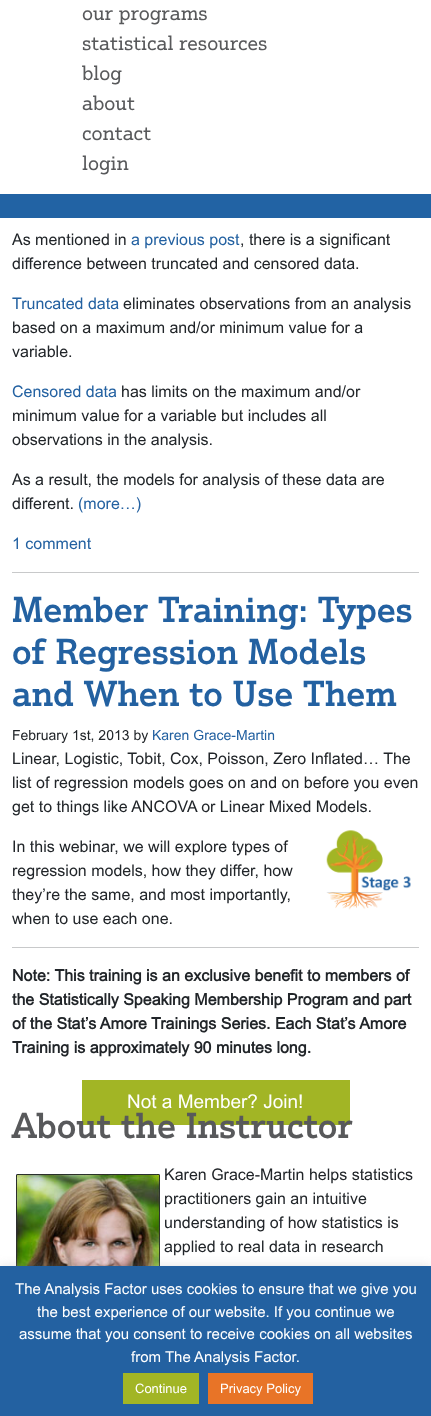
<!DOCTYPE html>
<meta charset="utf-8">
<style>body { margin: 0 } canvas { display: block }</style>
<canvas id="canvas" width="431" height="1416"></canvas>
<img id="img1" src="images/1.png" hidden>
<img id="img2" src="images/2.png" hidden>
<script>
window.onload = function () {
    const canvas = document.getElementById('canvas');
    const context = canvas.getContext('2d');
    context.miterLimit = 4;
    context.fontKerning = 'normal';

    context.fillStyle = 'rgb(255, 255, 255)';
    context.fillRect(0, 0, 431, 1416);
    context.fillStyle = 'rgb(34, 99, 164)';
    context.fillRect(0, 194, 431, 24);
    context.fillStyle = 'rgb(200, 201, 202)';
    context.fillRect(12, 572, 407, 1);
    context.drawImage(document.getElementById('img1'), 326, 830, 85, 80);
    context.fillRect(12, 947, 407, 1);
    context.fillStyle = 'rgb(162, 181, 37)';
    context.fillRect(82, 1080, 268, 45);
    context.drawImage(document.getElementById('img2'), 16, 1174, 144, 92);
    context.fillStyle = 'rgba(172, 171, 171, 0.3)';
    context.filter = 'blur(5px)';
    context.beginPath();
    context.rect(0, 1265, 431, 150);
    context.fill();
    context.filter = 'none';
    context.fillStyle = 'rgb(35, 97, 161)';
    context.fillRect(0, 1266, 431, 150);
    context.fillStyle = 'rgb(162, 181, 37)';
    context.fillRect(123, 1373, 76, 31);
    context.fillStyle = 'rgb(232, 116, 39)';
    context.fillRect(208, 1373, 105, 31);
    context.font = '20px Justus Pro';
    context.fillStyle = 'rgb(88, 89, 91)';
    context.fillText('our programs', 82, 20);
    context.fillText('statistical resources', 82, 50);
    context.fillText('blog', 82, 80);
    context.fillText('about', 82, 110);
    context.fillText('contact', 82, 140);
    context.fillText('login', 82, 170);
    context.font = '16px Arial';
    context.fillStyle = 'rgb(33, 37, 41)';
    context.fillText('As mentioned in', 12, 245);
    context.fillStyle = 'rgb(35, 97, 161)';
    context.fillText('a previous post', 131, 245);
    context.fillStyle = 'rgb(33, 37, 41)';
    context.fillText(', there is a significant', 240, 245);
    context.fillText('difference between truncated and censored data.', 12, 269);
    context.fillStyle = 'rgb(35, 97, 161)';
    context.fillText('Truncated data', 12, 309);
    context.fillStyle = 'rgb(33, 37, 41)';
    context.fillText('eliminates observations from an analysis', 123, 309);
    context.fillText('based on a maximum and/or minimum value for a', 12, 333);
    context.fillText('variable.', 12, 357);
    context.fillStyle = 'rgb(35, 97, 161)';
    context.fillText('Censored data', 12, 397);
    context.fillStyle = 'rgb(33, 37, 41)';
    context.fillText('has limits on the maximum and/or', 121, 397);
    context.fillText('minimum value for a variable but includes all', 12, 421);
    context.fillText('observations in the analysis.', 12, 445);
    context.fillText('As a result, the models for analysis of these data are', 12, 485);
    context.fillText('different.', 12, 509);
    context.fillStyle = 'rgb(35, 97, 161)';
    context.fillText('(more…)', 78, 509);
    context.fillText('1 comment', 12, 549);
    context.font = '500 35px Justus Pro';
    context.fillText('Member Training: Types', 12, 622);
    context.fillText('of Regression Models', 12, 664);
    context.fillText('and When to Use Them', 12, 706);
    context.font = '14px Arial';
    context.fillStyle = 'rgb(33, 37, 41)';
    context.fillText('February 1st, 2013 by', 12, 740);
    context.fillStyle = 'rgb(35, 97, 161)';
    context.fillText('Karen Grace-Martin', 152, 740);
    context.font = '16px Arial';
    context.fillStyle = 'rgb(33, 37, 41)';
    context.fillText('Linear, Logistic, Tobit, Cox, Poisson, Zero Inflated… The', 12, 764);
    context.fillText('list of regression models goes on and on before you even', 12, 788);
    context.fillText('get to things like ANCOVA or Linear Mixed Models.', 12, 812);
    context.fillText('In this webinar, we will explore types of', 12, 852);
    context.fillText('regression models, how they differ, how', 12, 876);
    context.fillText('they’re the same, and most importantly,', 12, 900);
    context.fillText('when to use each one.', 12, 924);
    context.font = 'bold 16px Arial';
    context.fillText('Note: This training is an exclusive benefit to members of', 12, 981);
    context.fillText('the Statistically Speaking Membership Program and part', 12, 1005);
    context.fillText('of the Stat’s Amore Trainings Series. Each Stat’s Amore', 12, 1029);
    context.fillText('Training is approximately 90 minutes long.', 12, 1053);
    context.font = '19px Arial';
    context.fillStyle = 'rgb(255, 255, 255)';
    context.fillText('Not a Member? Join!', 127, 1108);
    context.font = '500 35px Justus Pro';
    context.fillStyle = 'rgb(88, 89, 91)';
    context.fillText('About the Instructor', 12, 1138);
    context.font = '16px Arial';
    context.fillStyle = 'rgb(33, 37, 41)';
    context.fillText('Karen Grace-Martin helps statistics', 164, 1180);
    context.fillText('practitioners gain an intuitive', 164, 1204);
    context.fillText('understanding of how statistics is', 164, 1228);
    context.fillText('applied to real data in research', 164, 1252);
    context.font = '15px Arial';
    context.fillStyle = 'rgb(255, 255, 255)';
    context.fillText('The Analysis Factor uses cookies to ensure that we give you', 15, 1294);
    context.fillText('the best experience of our website. If you continue we', 37, 1317);
    context.fillText('assume that you consent to receive cookies on all websites', 19, 1339);
    context.fillText('from The Analysis Factor.', 131, 1362);
    context.font = '13px Arial';
    context.fillText('Continue', 135, 1393);
    context.fillText('Privacy Policy', 220, 1393);
};
</script>
